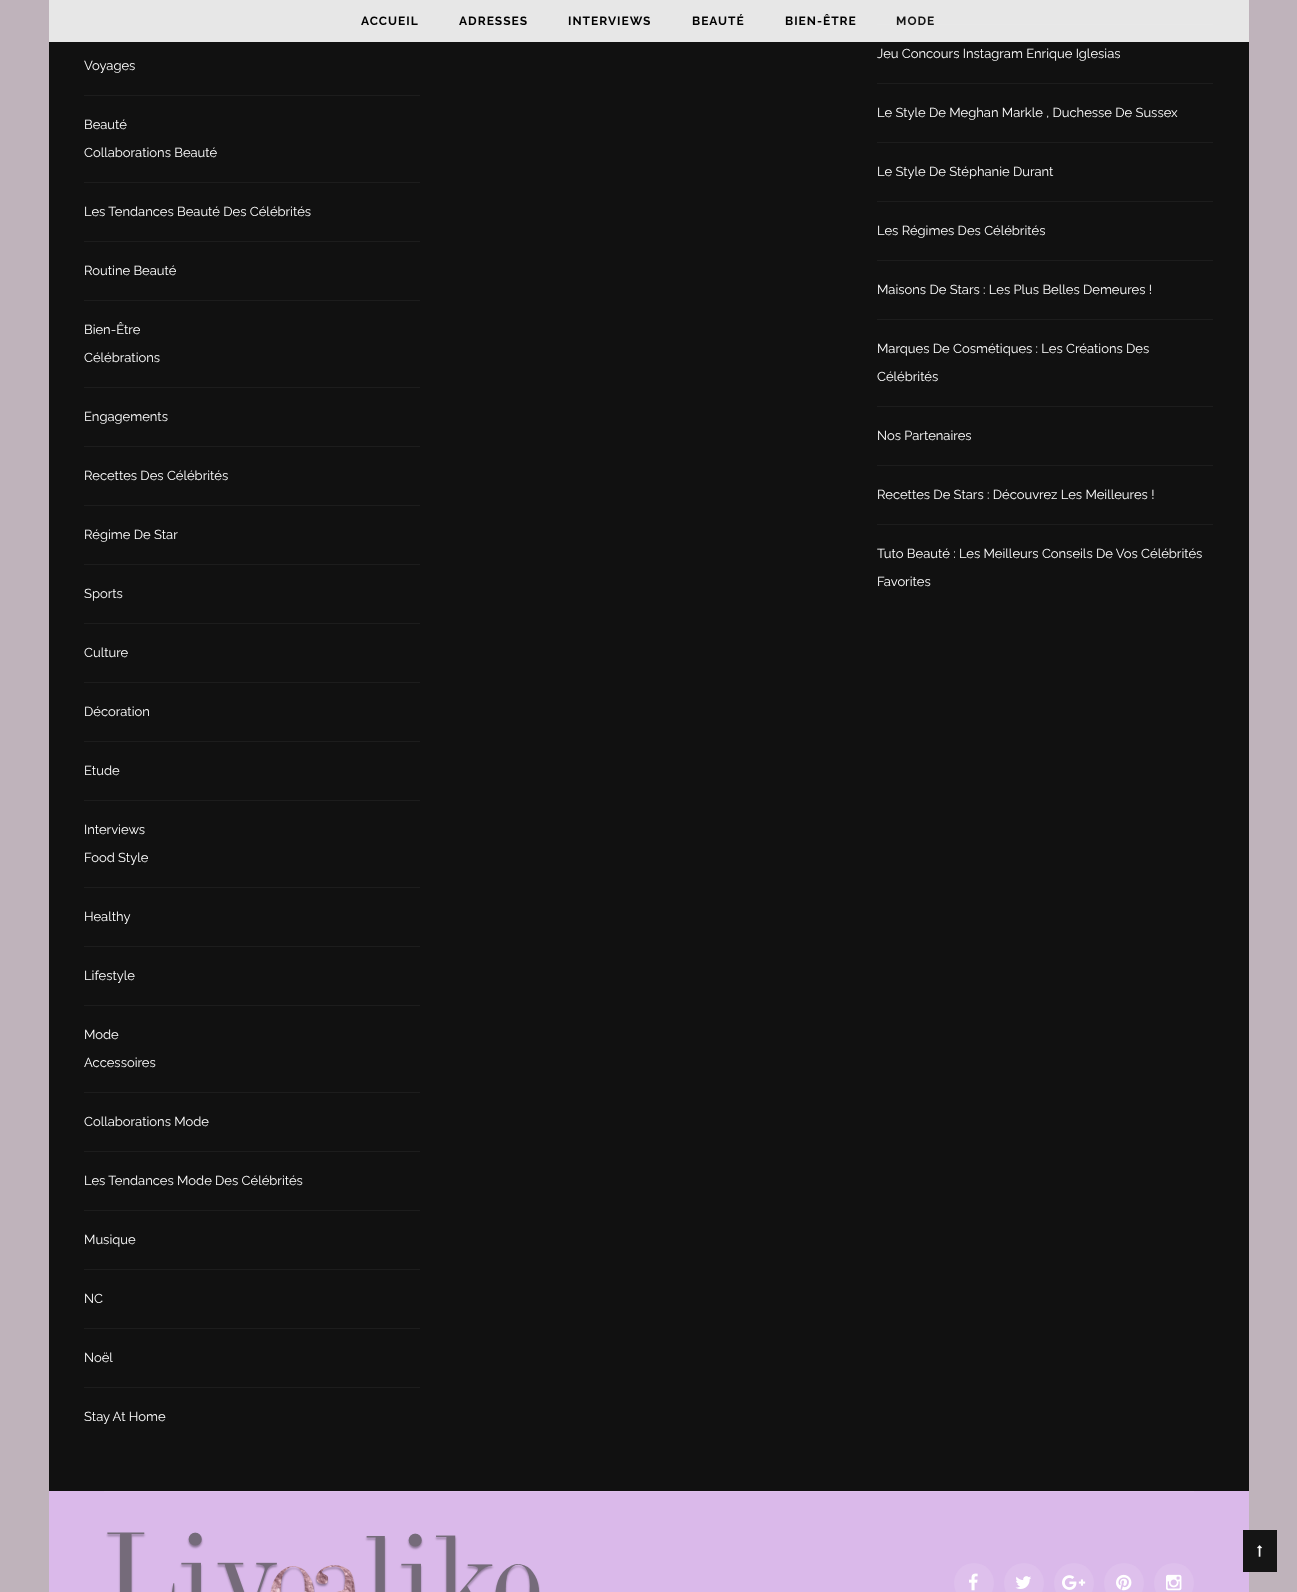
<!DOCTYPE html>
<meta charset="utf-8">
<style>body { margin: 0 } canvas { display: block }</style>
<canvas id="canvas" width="1297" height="1592"></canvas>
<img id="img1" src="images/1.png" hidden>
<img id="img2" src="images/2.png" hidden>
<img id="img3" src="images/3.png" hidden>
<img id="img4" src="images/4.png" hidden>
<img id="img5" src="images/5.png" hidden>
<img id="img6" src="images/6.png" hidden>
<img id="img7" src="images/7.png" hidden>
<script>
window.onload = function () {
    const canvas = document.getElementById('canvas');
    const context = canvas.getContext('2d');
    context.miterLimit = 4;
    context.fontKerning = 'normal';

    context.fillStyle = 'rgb(191, 179, 187)';
    context.fillRect(0, 0, 1297, 1592);
    context.fillStyle = 'rgb(17, 17, 17)';
    context.fillRect(49, 0, 1200, 1491);
    context.fillStyle = 'rgb(29, 29, 29)';
    context.fillRect(877, 24, 336, 1);
    context.fillStyle = 'rgba(255, 255, 255, 0.9)';
    context.fillRect(49, 0, 1200, 42);
    context.fillStyle = 'rgb(29, 29, 29)';
    context.fillRect(84, 95, 336, 1);
    context.fillRect(84, 300, 336, 1);
    context.fillRect(84, 182, 336, 1);
    context.fillRect(84, 241, 336, 1);
    context.fillRect(84, 623, 336, 1);
    context.fillRect(84, 387, 336, 1);
    context.fillRect(84, 446, 336, 1);
    context.fillRect(84, 505, 336, 1);
    context.fillRect(84, 564, 336, 1);
    context.fillRect(84, 682, 336, 1);
    context.fillRect(84, 741, 336, 1);
    context.fillRect(84, 800, 336, 1);
    context.fillRect(84, 1005, 336, 1);
    context.fillRect(84, 887, 336, 1);
    context.fillRect(84, 946, 336, 1);
    context.fillRect(84, 1210, 336, 1);
    context.fillRect(84, 1092, 336, 1);
    context.fillRect(84, 1151, 336, 1);
    context.fillRect(84, 1269, 336, 1);
    context.fillRect(84, 1328, 336, 1);
    context.fillRect(84, 1387, 336, 1);
    context.fillRect(877, 83, 336, 1);
    context.fillRect(877, 142, 336, 1);
    context.fillRect(877, 201, 336, 1);
    context.fillRect(877, 260, 336, 1);
    context.fillRect(877, 319, 336, 1);
    context.fillRect(877, 406, 336, 1);
    context.fillRect(877, 465, 336, 1);
    context.fillRect(877, 524, 336, 1);
    context.fillStyle = 'rgb(218, 185, 234)';
    context.fillRect(49, 1491, 1200, 101);
    context.fillStyle = 'rgb(222, 192, 236)';
    context.fillRect(104, 1491, 1090, 1);
    context.drawImage(document.getElementById('img1'), 106, 1532, 434, 60);
    context.beginPath();
    context.arc(974, 1583, 20, 0, 2 * Math.PI);
    context.fill();
    context.drawImage(document.getElementById('img2'), 969, 1573, 9, 18);
    context.beginPath();
    context.arc(1024, 1583, 20, 0, 2 * Math.PI);
    context.fill();
    context.drawImage(document.getElementById('img3'), 1015, 1576, 16, 13);
    context.beginPath();
    context.arc(1074, 1583, 20, 0, 2 * Math.PI);
    context.fill();
    context.drawImage(document.getElementById('img4'), 1062, 1575, 24, 15);
    context.beginPath();
    context.arc(1124, 1583, 20, 0, 2 * Math.PI);
    context.fill();
    context.drawImage(document.getElementById('img5'), 1116, 1574, 16, 17);
    context.beginPath();
    context.arc(1174, 1583, 20, 0, 2 * Math.PI);
    context.fill();
    context.drawImage(document.getElementById('img6'), 1166, 1574, 16, 17);
    context.fillStyle = 'rgba(17, 17, 17, 0.98)';
    context.fillRect(1243, 1530, 34, 42);
    context.drawImage(document.getElementById('img7'), 1257, 1545, 6, 12);
    context.letterSpacing = '1px';
    context.font = 'bold 12px Raleway';
    context.fillStyle = 'rgb(2, 2, 2)';
    context.fillText('ACCUEIL', 361, 25);
    context.fillText('ADRESSES', 459, 25);
    context.fillText('INTERVIEWS', 568, 25);
    context.fillText('BEAUTÉ', 692, 25);
    context.fillText('BIEN-ÊTRE', 785, 25);
    context.fillStyle = 'rgb(23, 23, 23)';
    context.fillText('MODE', 896, 25);
    context.letterSpacing = '0px';
    context.font = '13px Raleway';
    context.fillStyle = 'rgb(255, 255, 255)';
    context.fillText('Voyages', 84, 70);
    context.fillText('Beauté', 84, 129);
    context.fillText('Collaborations Beauté', 84, 157);
    context.fillText('Les Tendances Beauté Des Célébrités', 84, 216);
    context.fillText('Routine Beauté', 84, 275);
    context.fillText('Bien-Être', 84, 334);
    context.fillText('Célébrations', 84, 362);
    context.fillText('Engagements', 84, 421);
    context.fillText('Recettes Des Célébrités', 84, 480);
    context.fillText('Régime De Star', 84, 539);
    context.fillText('Sports', 84, 598);
    context.fillText('Culture', 84, 657);
    context.fillText('Décoration', 84, 716);
    context.fillText('Etude', 84, 775);
    context.fillText('Interviews', 84, 834);
    context.fillText('Food Style', 84, 862);
    context.fillText('Healthy', 84, 921);
    context.fillText('Lifestyle', 84, 980);
    context.fillText('Mode', 84, 1039);
    context.fillText('Accessoires', 84, 1067);
    context.fillText('Collaborations Mode', 84, 1126);
    context.fillText('Les Tendances Mode Des Célébrités', 84, 1185);
    context.fillText('Musique', 84, 1244);
    context.fillText('NC', 84, 1303);
    context.fillText('Noël', 84, 1362);
    context.fillText('Stay At Home', 84, 1421);
    context.fillText('Jeu Concours Instagram Enrique Iglesias', 877, 58);
    context.fillText('Le Style De Meghan Markle , Duchesse De Sussex', 877, 117);
    context.fillText('Le Style De Stéphanie Durant', 877, 176);
    context.fillText('Les Régimes Des Célébrités', 877, 235);
    context.fillText('Maisons De Stars : Les Plus Belles Demeures !', 877, 294);
    context.fillText('Marques De Cosmétiques : Les Créations Des', 877, 353);
    context.fillText('Célébrités', 877, 381);
    context.fillText('Nos Partenaires', 877, 440);
    context.fillText('Recettes De Stars : Découvrez Les Meilleures !', 877, 499);
    context.fillText('Tuto Beauté : Les Meilleurs Conseils De Vos Célébrités', 877, 558);
    context.fillText('Favorites', 877, 586);
};
</script>
